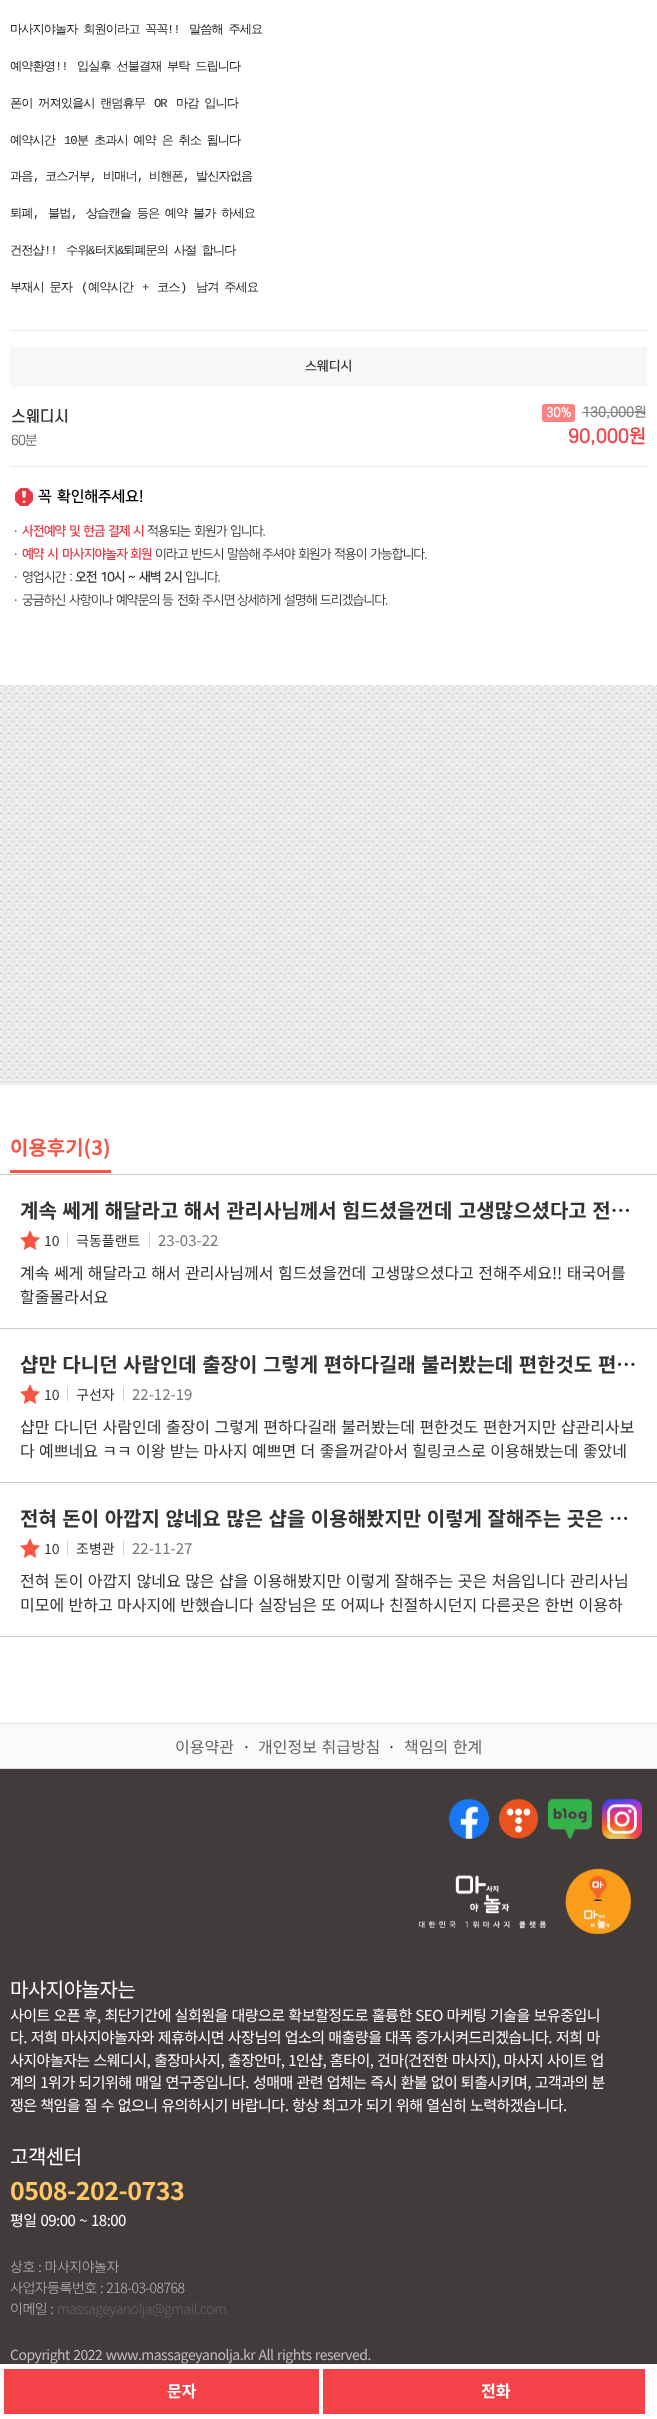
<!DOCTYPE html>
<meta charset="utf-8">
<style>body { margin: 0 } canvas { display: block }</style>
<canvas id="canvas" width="657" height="2419"></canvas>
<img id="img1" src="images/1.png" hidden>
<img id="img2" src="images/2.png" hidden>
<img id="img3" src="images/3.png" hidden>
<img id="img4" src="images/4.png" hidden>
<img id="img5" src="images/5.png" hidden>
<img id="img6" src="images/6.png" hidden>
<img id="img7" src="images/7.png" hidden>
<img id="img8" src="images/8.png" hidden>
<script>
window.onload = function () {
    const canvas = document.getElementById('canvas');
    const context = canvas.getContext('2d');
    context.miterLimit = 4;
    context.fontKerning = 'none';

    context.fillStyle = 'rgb(255, 255, 255)';
    context.fillRect(0, 0, 657, 2419);
    context.fillStyle = 'rgb(232, 232, 232)';
    context.fillRect(10, 330, 637, 1);
    context.fillStyle = 'rgb(247, 247, 247)';
    context.fillRect(10, 347, 637, 40);
    context.fillStyle = 'rgb(232, 232, 232)';
    context.fillRect(10, 466, 637, 1);
    context.fillStyle = 'rgb(255, 128, 128)';
    context.beginPath();
    context.roundRect(542, 404, 33, 18, 3);
    context.fill();
    context.fillStyle = 'rgb(133, 133, 133)';
    context.fillRect(582, 412, 64, 1);
    context.drawImage(document.getElementById('img1'), 15, 488, 18, 18);
    context.drawImage(document.getElementById('img2'), 0, 685, 657, 400);
    context.fillStyle = 'rgb(204, 204, 204)';
    context.fillRect(0, 1174, 657, 1);
    context.fillStyle = 'rgb(246, 86, 69)';
    context.fillRect(10, 1170, 101, 3);
    context.fillStyle = 'rgb(204, 204, 204)';
    context.fillRect(0, 1328, 657, 1);
    context.drawImage(document.getElementById('img3'), 20, 1230, 20, 20);
    context.fillStyle = 'rgb(210, 210, 210)';
    context.fillRect(67, 1233, 1, 14);
    context.fillRect(149, 1233, 1, 14);
    context.fillStyle = 'rgb(204, 204, 204)';
    context.fillRect(0, 1482, 657, 1);
    context.drawImage(document.getElementById('img3'), 20, 1384, 20, 20);
    context.fillStyle = 'rgb(210, 210, 210)';
    context.fillRect(67, 1387, 1, 14);
    context.fillRect(123, 1387, 1, 14);
    context.fillStyle = 'rgb(204, 204, 204)';
    context.fillRect(0, 1636, 657, 1);
    context.drawImage(document.getElementById('img3'), 20, 1538, 20, 20);
    context.fillStyle = 'rgb(210, 210, 210)';
    context.fillRect(67, 1541, 1, 14);
    context.fillRect(123, 1541, 1, 14);
    context.fillStyle = 'rgb(243, 67, 72)';
    context.fillRect(4, 2369, 315, 45);
    context.fillRect(323, 2369, 322, 45);
    context.fillStyle = 'rgb(250, 250, 250)';
    context.fillRect(0, 1724, 657, 44);
    context.fillStyle = 'rgb(221, 221, 221)';
    context.fillRect(0, 1723, 657, 1);
    context.fillRect(0, 1768, 657, 1);
    context.fillStyle = 'rgb(65, 59, 59)';
    context.fillRect(0, 1769, 657, 595);
    context.drawImage(document.getElementById('img4'), 449, 1798, 40, 41);
    context.drawImage(document.getElementById('img5'), 499, 1798, 39, 41);
    context.drawImage(document.getElementById('img6'), 548, 1798, 44, 41);
    context.drawImage(document.getElementById('img7'), 602, 1798, 40, 41);
    context.drawImage(document.getElementById('img8'), 419, 1868, 213, 66);
    context.letterSpacing = '-1px';
    context.wordSpacing = '3px';
    context.font = '500 12.25px WenQuanYi Zen Hei';
    context.fillStyle = 'rgb(33, 37, 41)';
    context.fillText('마사지야놀자 회원이라고 꼭꼭', 10, 33);
    context.wordSpacing = '0px';
    context.font = '12.25px Liberation Mono';
    context.fillText('!!', 167, 33);
    context.wordSpacing = '3px';
    context.font = '500 12.25px WenQuanYi Zen Hei';
    context.fillText('말씀해 주세요', 189, 33);
    context.wordSpacing = '0px';
    context.fillText('예약환영', 10, 70);
    context.font = '12.25px Liberation Mono';
    context.fillText('!!', 55, 70);
    context.wordSpacing = '3px';
    context.font = '500 12.25px WenQuanYi Zen Hei';
    context.fillText('입실후 선불결재 부탁 드립니다', 77, 70);
    context.fillText('폰이 꺼져있을시 랜덤휴무', 10, 107);
    context.wordSpacing = '0px';
    context.font = '12.25px Liberation Mono';
    context.fillText('OR', 154, 107);
    context.wordSpacing = '3px';
    context.font = '500 12.25px WenQuanYi Zen Hei';
    context.fillText('마감 입니다', 176, 107);
    context.wordSpacing = '0px';
    context.fillText('예약시간', 10, 144);
    context.font = '12.25px Liberation Mono';
    context.fillText('10', 64, 144);
    context.wordSpacing = '3px';
    context.font = '500 12.25px WenQuanYi Zen Hei';
    context.fillText('분 초과시 예약 은 취소 됩니다', 77, 144);
    context.wordSpacing = '0px';
    context.fillText('과음', 10, 180);
    context.font = '12.25px Liberation Mono';
    context.fillText(',', 33, 180);
    context.font = '500 12.25px WenQuanYi Zen Hei';
    context.fillText('코스거부', 45, 180);
    context.font = '12.25px Liberation Mono';
    context.fillText(',', 90, 180);
    context.font = '500 12.25px WenQuanYi Zen Hei';
    context.fillText('비매너', 103, 180);
    context.font = '12.25px Liberation Mono';
    context.fillText(',', 137, 180);
    context.font = '500 12.25px WenQuanYi Zen Hei';
    context.fillText('비핸폰', 149, 180);
    context.font = '12.25px Liberation Mono';
    context.fillText(',', 183, 180);
    context.font = '500 12.25px WenQuanYi Zen Hei';
    context.fillText('발신자없음', 196, 180);
    context.fillText('퇴폐', 10, 217);
    context.font = '12.25px Liberation Mono';
    context.fillText(',', 33, 217);
    context.font = '500 12.25px WenQuanYi Zen Hei';
    context.fillText('불법', 48, 217);
    context.font = '12.25px Liberation Mono';
    context.fillText(',', 71, 217);
    context.wordSpacing = '3px';
    context.font = '500 12.25px WenQuanYi Zen Hei';
    context.fillText('상습캔슬 등은 예약 불가 하세요', 86, 217);
    context.wordSpacing = '0px';
    context.fillText('건전샵', 10, 254);
    context.font = '12.25px Liberation Mono';
    context.fillText('!!', 44, 254);
    context.font = '500 12.25px WenQuanYi Zen Hei';
    context.fillText('수위', 66, 254);
    context.font = '12.25px Liberation Mono';
    context.fillText('&', 88, 254);
    context.font = '500 12.25px WenQuanYi Zen Hei';
    context.fillText('터치', 95, 254);
    context.font = '12.25px Liberation Mono';
    context.fillText('&', 117, 254);
    context.wordSpacing = '3px';
    context.font = '500 12.25px WenQuanYi Zen Hei';
    context.fillText('퇴폐문의 사절 합니다', 123, 254);
    context.fillText('부재시 문자', 10, 291);
    context.wordSpacing = '0px';
    context.font = '12.25px Liberation Mono';
    context.fillText('(', 81, 291);
    context.font = '500 12.25px WenQuanYi Zen Hei';
    context.fillText('예약시간', 88, 291);
    context.font = '12.25px Liberation Mono';
    context.fillText('+', 142, 291);
    context.font = '500 12.25px WenQuanYi Zen Hei';
    context.fillText('코스', 157, 291);
    context.font = '12.25px Liberation Mono';
    context.fillText(')', 180, 291);
    context.wordSpacing = '3px';
    context.font = '500 12.25px WenQuanYi Zen Hei';
    context.fillText('남겨 주세요', 196, 291);
    context.letterSpacing = '0px';
    context.wordSpacing = '0px';
    context.font = 'bold 13px "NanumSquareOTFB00"';
    context.fillStyle = 'rgb(51, 51, 51)';
    context.fillText('스웨디시', 305, 370);
    context.font = 'bold 15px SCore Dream';
    context.fillText('스웨디시', 11, 422);
    context.letterSpacing = '-1px';
    context.font = '13px SCore Dream';
    context.fillStyle = 'rgb(102, 102, 102)';
    context.fillText('60분', 11, 445);
    context.letterSpacing = '0px';
    context.font = 'bold 12px SCore Dream';
    context.fillStyle = 'rgb(255, 255, 255)';
    context.fillText('30%', 546, 417);
    context.font = 'bold 13px SCore Dream';
    context.fillStyle = 'rgb(133, 133, 133)';
    context.fillText('130,000원', 582, 417);
    context.font = 'bold 18px SCore Dream';
    context.fillStyle = 'rgb(243, 67, 72)';
    context.fillText('90,000원', 568, 443);
    context.font = 'bold 15px "NanumSquareOTFB00"';
    context.fillStyle = 'rgb(0, 0, 0)';
    context.fillText('꼭', 38, 501);
    context.fillText('확인해주세요!', 57, 501);
    context.letterSpacing = '-1px';
    context.font = '13px "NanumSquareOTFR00"';
    context.fillStyle = 'rgb(51, 51, 51)';
    context.fillText('·', 13, 535);
    context.font = 'bold 13px "NanumSquareOTFB00"';
    context.fillStyle = 'rgb(228, 58, 69)';
    context.fillText('사전예약', 22, 535);
    context.fillText('및', 69, 535);
    context.fillText('현금', 83, 535);
    context.fillText('결제', 108, 535);
    context.fillText('시', 133, 535);
    context.font = '13px "NanumSquareOTFR00"';
    context.fillStyle = 'rgb(51, 51, 51)';
    context.fillText('적용되는', 147, 535);
    context.fillText('회원가', 194, 535);
    context.fillText('입니다.', 230, 535);
    context.fillText('·', 13, 558);
    context.font = 'bold 13px "NanumSquareOTFB00"';
    context.fillStyle = 'rgb(228, 58, 69)';
    context.fillText('예약', 22, 558);
    context.fillText('시', 47, 558);
    context.fillText('마사지야놀자', 62, 558);
    context.fillText('회원', 130, 558);
    context.font = '13px "NanumSquareOTFR00"';
    context.fillStyle = 'rgb(51, 51, 51)';
    context.fillText('이라고', 155, 558);
    context.fillText('반드시', 191, 558);
    context.fillText('말씀해', 227, 558);
    context.fillText('주셔야', 262, 558);
    context.fillText('회원가', 298, 558);
    context.fillText('적용이', 334, 558);
    context.fillText('가능합니다.', 370, 558);
    context.fillText('·', 13, 581);
    context.fillText('영업시간', 22, 581);
    context.fillText(':', 69, 581);
    context.font = 'bold 13px "NanumSquareOTFB00"';
    context.fillText('오전', 75, 581);
    context.fillText('10시', 100, 581);
    context.fillText('~', 128, 581);
    context.fillText('새벽', 139, 581);
    context.fillText('2시', 164, 581);
    context.font = '13px "NanumSquareOTFR00"';
    context.fillText('입니다.', 185, 581);
    context.fillText('·', 13, 604);
    context.fillText('궁금하신', 22, 604);
    context.fillText('사항이나', 69, 604);
    context.fillText('예약문의', 116, 604);
    context.fillText('등', 162, 604);
    context.fillText('전화', 177, 604);
    context.fillText('주시면', 202, 604);
    context.fillText('상세하게', 237, 604);
    context.fillText('설명해', 284, 604);
    context.fillText('드리겠습니다.', 320, 604);
    context.letterSpacing = '0px';
    context.font = 'bold 20px Noto Sans KR';
    context.fillStyle = 'rgb(246, 86, 69)';
    context.fillText('이용후기(3)', 10, 1155);
    context.wordSpacing = '1px';
    context.fillStyle = 'rgb(51, 51, 51)';
    context.fillText('계속 쎄게 해달라고 해서 관리사님께서', 20, 1218);
    context.fillText('힘드셨을껀데 고생많으셨다고 전…', 342, 1218);
    context.wordSpacing = '0px';
    context.font = '14px Noto Sans KR';
    context.fillText('10', 44, 1246);
    context.fillText('극동플랜트', 76, 1246);
    context.font = '15px Noto Sans KR';
    context.fillStyle = 'rgb(119, 119, 119)';
    context.fillText('23-03-22', 158, 1246);
    context.wordSpacing = '0.9px';
    context.font = '16px Noto Sans KR';
    context.fillStyle = 'rgb(51, 51, 51)';
    context.fillText('계속 쎄게 해달라고 해서 관리사님께서', 20, 1279);
    context.fillText('힘드셨을껀데 고생많으셨다고 전해주세요!! 태국어를', 278, 1279);
    context.wordSpacing = '0px';
    context.fillText('할줄몰라서요', 20, 1303);
    context.wordSpacing = '1px';
    context.font = 'bold 20px Noto Sans KR';
    context.fillText('샵만 다니던 사람인데 출장이 그렇게 편하다길래 불러봤는데 편한것도 편…', 20, 1372);
    context.wordSpacing = '0px';
    context.font = '14px Noto Sans KR';
    context.fillText('10', 44, 1400);
    context.fillText('구선자', 76, 1400);
    context.font = '15px Noto Sans KR';
    context.fillStyle = 'rgb(119, 119, 119)';
    context.fillText('22-12-19', 132, 1400);
    context.wordSpacing = '0.9px';
    context.font = '16px Noto Sans KR';
    context.fillStyle = 'rgb(51, 51, 51)';
    context.fillText('샵만 다니던 사람인데 출장이 그렇게 편하다길래 불러봤는데 편한것도 편한거지만 샵관리사보', 20, 1433);
    context.wordSpacing = '0.75px';
    context.fillText('다 예쁘네요 ㅋㅋ 이왕 받는 마사지 예쁘면 더 좋을꺼같아서 힐링코스로 이용해봤는데 좋았네', 20, 1457);
    context.wordSpacing = '1px';
    context.font = 'bold 20px Noto Sans KR';
    context.fillText('전혀 돈이 아깝지 않네요 많은 샵을 이용해봤지만 이렇게 잘해주는 곳은 …', 20, 1526);
    context.wordSpacing = '0px';
    context.font = '14px Noto Sans KR';
    context.fillText('10', 44, 1554);
    context.fillText('조병관', 76, 1554);
    context.font = '15px Noto Sans KR';
    context.fillStyle = 'rgb(119, 119, 119)';
    context.fillText('22-11-27', 132, 1554);
    context.wordSpacing = '0.9px';
    context.font = '16px Noto Sans KR';
    context.fillStyle = 'rgb(51, 51, 51)';
    context.fillText('전혀 돈이 아깝지 않네요 많은 샵을 이용해봤지만 이렇게 잘해주는 곳은 처음입니다 관리사님', 20, 1587);
    context.wordSpacing = '0.75px';
    context.fillText('미모에 반하고 마사지에 반했습니다 실장님은 또 어찌나 친절하시던지 다른곳은 한번 이용하', 20, 1611);
    context.wordSpacing = '0px';
    context.font = 'bold 16px Noto Sans KR';
    context.fillStyle = 'rgb(255, 255, 255)';
    context.fillText('문자', 167, 2397);
    context.fillText('전화', 481, 2397);
    context.font = '16px Noto Sans KR';
    context.fillStyle = 'rgb(102, 102, 102)';
    context.fillText('이용약관', 175, 1753);
    context.fillStyle = 'rgb(33, 37, 41)';
    context.fillText('ㆍ', 239, 1753);
    context.wordSpacing = '1px';
    context.fillStyle = 'rgb(102, 102, 102)';
    context.fillText('개인정보 취급방침', 258, 1753);
    context.wordSpacing = '0px';
    context.fillStyle = 'rgb(33, 37, 41)';
    context.fillText('ㆍ', 384, 1753);
    context.wordSpacing = '1px';
    context.fillStyle = 'rgb(102, 102, 102)';
    context.fillText('책임의 한계', 404, 1753);
    context.letterSpacing = '-0.5px';
    context.wordSpacing = '0px';
    context.font = '20px Noto Sans KR';
    context.fillStyle = 'rgb(255, 255, 255)';
    context.fillText('마사지야놀자는', 10, 1997);
    context.wordSpacing = '0.8px';
    context.font = '15px Noto Sans KR';
    context.fillText('사이트 오픈 후, 최단기간에 실회원을 대량으로 확보할정도로 훌륭한 SEO 마케팅 기술을 보유중입니', 10, 2021);
    context.fillText('다. 저희 마사지야놀자와 제휴하시면 사장님의 업소의 매출량을 대폭 증가시켜드리겠습니다.', 10, 2043);
    context.wordSpacing = '1px';
    context.fillText('저희 마', 556, 2043);
    context.wordSpacing = '0.75px';
    context.fillText('사지야놀자는 스웨디시, 출장마사지, 출장안마, 1인샵, 홈타이, 건마(건전한 마사지), 마사지 사이트 업', 10, 2066);
    context.wordSpacing = '0.8px';
    context.fillText('계의 1위가 되기위해 매일 연구중입니다.', 10, 2088);
    context.wordSpacing = '0.75px';
    context.fillText('성매매 관련 업체는 즉시 환불 없이 퇴출시키며, 고객과의 분', 253, 2088);
    context.wordSpacing = '0.8px';
    context.fillText('쟁은 책임을 질 수 없으니 유의하시기 바랍니다. 항상 최고가 되기 위해 열심히 노력하겠습니다.', 10, 2111);
    context.wordSpacing = '0px';
    context.font = '20px Noto Sans KR';
    context.fillText('고객센터', 10, 2164);
    context.font = 'bold 25px Noto Sans KR';
    context.fillStyle = 'rgb(255, 199, 101)';
    context.fillText('0508-202-0733', 10, 2200);
    context.wordSpacing = '1px';
    context.font = '15px Noto Sans KR';
    context.fillStyle = 'rgb(255, 255, 255)';
    context.fillText('평일 09:00 ~ 18:00', 10, 2226);
    context.wordSpacing = '0.8px';
    context.font = '300 14px Noto Sans KR';
    context.fillStyle = 'rgb(193, 189, 189)';
    context.fillText('상호 : 마사지야놀자', 10, 2272);
    context.wordSpacing = '0.75px';
    context.fillText('사업자등록번호 : 218-03-08768', 10, 2293);
    context.wordSpacing = '0.8px';
    context.fillText('이메일 :', 10, 2314);
    context.wordSpacing = '0px';
    context.fillStyle = 'rgb(102, 102, 102)';
    context.fillText('massageyanolja@gmail.com', 57, 2314);
    context.wordSpacing = '0.75px';
    context.font = '14px Noto Sans KR';
    context.fillStyle = 'rgb(193, 189, 189)';
    context.fillText('Copyright 2022 www.massageyanolja.kr All rights reserved.', 10, 2360);
};
</script>
